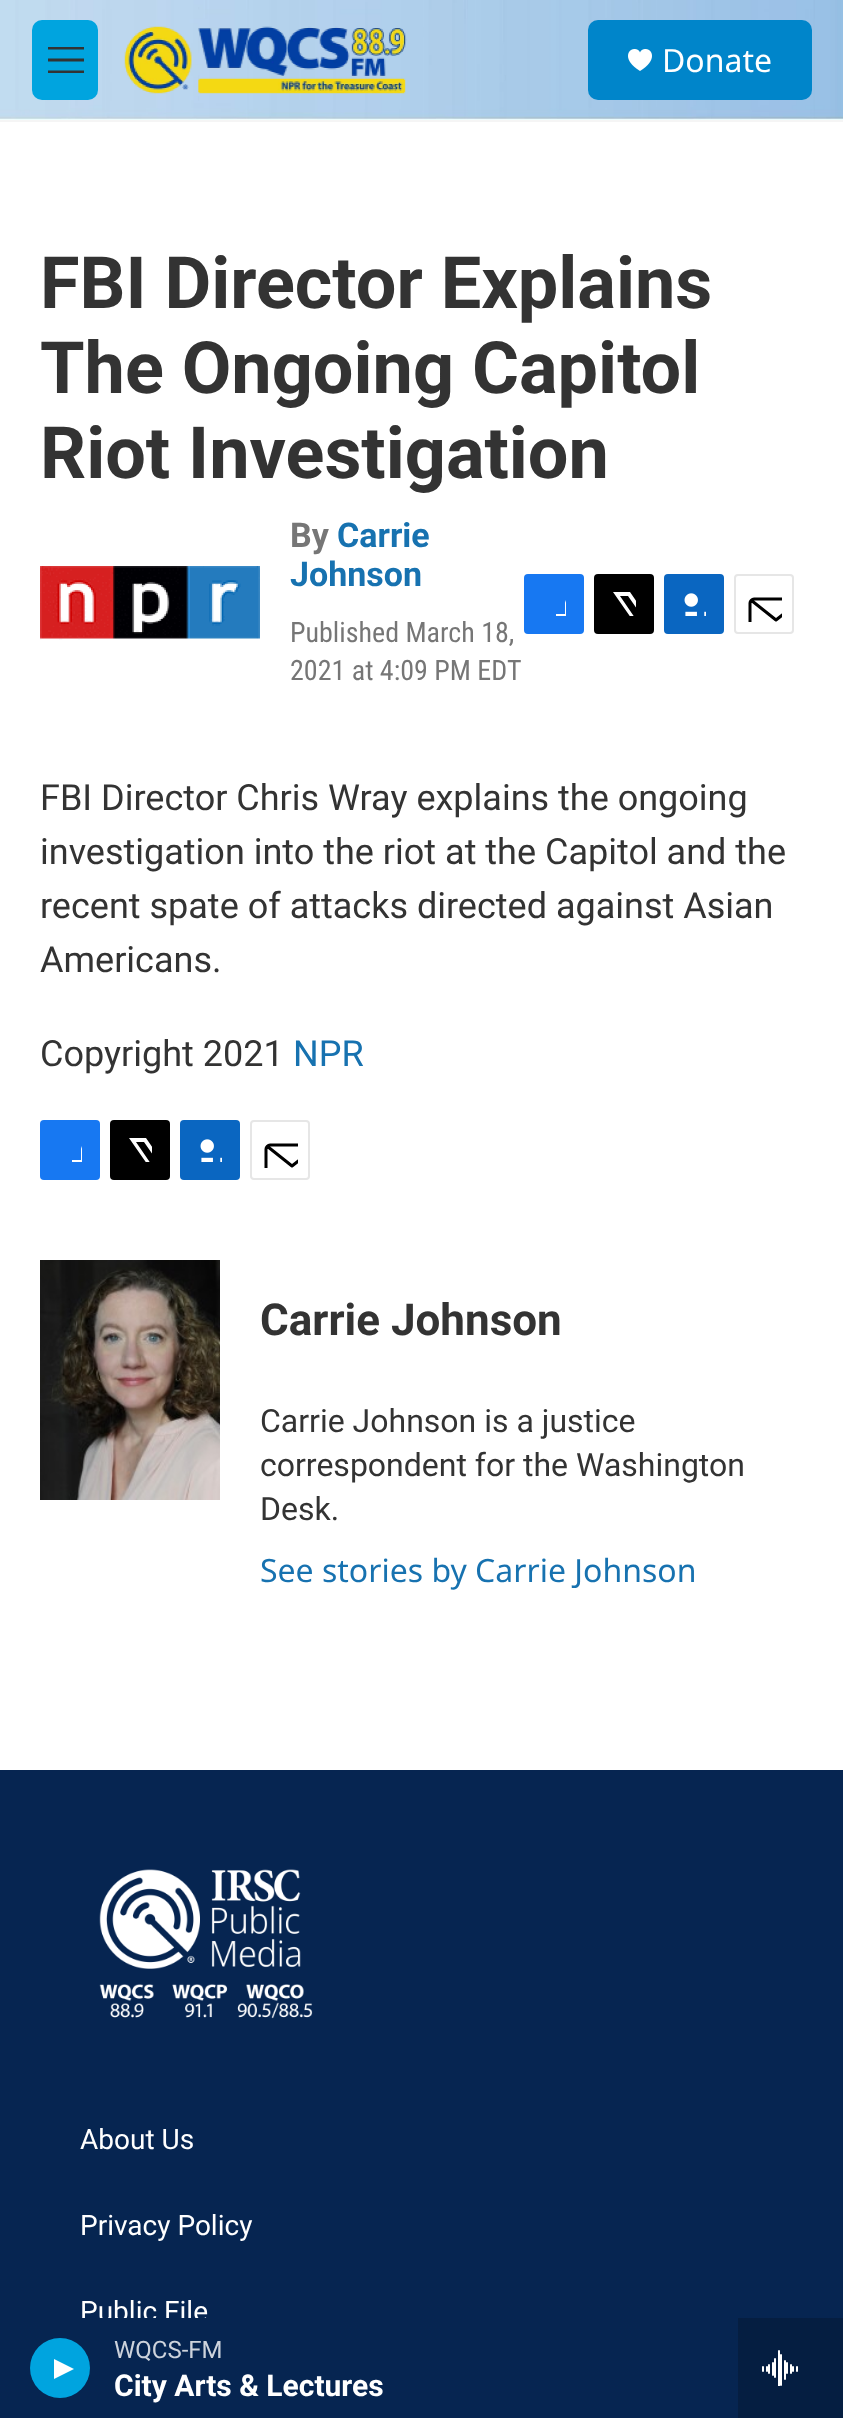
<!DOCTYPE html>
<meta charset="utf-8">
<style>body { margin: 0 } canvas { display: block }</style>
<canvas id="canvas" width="843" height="2418"></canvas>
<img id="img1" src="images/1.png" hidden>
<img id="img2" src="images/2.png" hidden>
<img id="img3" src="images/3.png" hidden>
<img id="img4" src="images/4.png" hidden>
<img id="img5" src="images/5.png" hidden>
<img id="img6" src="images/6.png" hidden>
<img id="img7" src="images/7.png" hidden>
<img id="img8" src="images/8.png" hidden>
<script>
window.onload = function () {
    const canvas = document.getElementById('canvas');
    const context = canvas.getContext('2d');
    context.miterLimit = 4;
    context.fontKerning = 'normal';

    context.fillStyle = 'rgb(255, 255, 255)';
    context.fillRect(0, 0, 843, 2418);
    context.fillStyle = 'rgb(245, 245, 245)';
    context.fillRect(0, 120, 843, 2);
    context.drawImage(document.getElementById('img1'), 0, 0, 843, 120);
    context.fillStyle = 'rgb(0, 164, 223)';
    context.beginPath();
    context.roundRect(32, 20, 66, 80, 10);
    context.fill();
    context.fillStyle = 'rgb(51, 51, 51)';
    context.beginPath();
    context.moveTo(48, 61.5);
    context.lineTo(48, 58.5);
    context.lineTo(84, 58.5);
    context.lineTo(84, 61.5);
    context.closePath();
    context.moveTo(48, 49.5);
    context.lineTo(48, 47);
    context.lineTo(84, 47);
    context.lineTo(84, 49.5);
    context.closePath();
    context.moveTo(48, 73);
    context.lineTo(48, 70.5);
    context.lineTo(84, 70.5);
    context.lineTo(84, 73);
    context.closePath();
    context.fill('evenodd');
    context.drawImage(document.getElementById('img2'), 124, 26, 283, 68);
    context.fillStyle = 'rgb(0, 133, 202)';
    context.beginPath();
    context.roundRect(588, 20, 224, 80, 10);
    context.fill();
    context.drawImage(document.getElementById('img3'), 628, 49, 24, 22);
    context.fillStyle = 'rgb(5, 30, 65)';
    context.fillRect(738, 2318, 105, 100);
    context.drawImage(document.getElementById('img4'), 762, 2350, 36, 36);
    context.drawImage(document.getElementById('img5'), 40, 566, 220, 74);
    context.fillStyle = 'rgb(23, 120, 242)';
    context.beginPath();
    context.roundRect(524, 574, 60, 60, 4);
    context.fill();
    context.save();
    context.beginPath();
    context.rect(542, 592, 24, 24);
    context.clip();
    context.fillStyle = 'rgb(255, 255, 255)';
    context.beginPath();
    context.moveTo(575, 634);
    context.lineTo(565, 634);
    context.lineTo(565, 624);
    context.lineTo(556, 624);
    context.lineTo(556, 614);
    context.lineTo(565, 614);
    context.lineTo(565, 603);
    context.bezierCurveTo(567, 594, 576, 592, 584, 593);
    context.lineTo(584, 602);
    context.bezierCurveTo(573, 602, 575, 605, 575, 614);
    context.lineTo(584, 614);
    context.lineTo(584, 619);
    context.lineTo(583, 624);
    context.lineTo(575, 624);
    context.closePath();
    context.fill();
    context.restore();
    context.fillStyle = 'rgb(0, 0, 0)';
    context.beginPath();
    context.roundRect(594, 574, 60, 60, 4);
    context.fill();
    context.save();
    context.beginPath();
    context.rect(612, 592, 24, 24);
    context.clip();
    context.fillStyle = 'rgb(255, 255, 255)';
    context.beginPath();
    context.moveTo(648, 617);
    context.lineTo(654, 626);
    context.bezierCurveTo(654, 628, 655, 631, 653, 632);
    context.lineTo(628, 596);
    context.lineTo(620, 596);
    context.lineTo(646, 634);
    context.lineTo(641, 634);
    context.lineTo(638, 629);
    context.lineTo(634, 634);
    context.lineTo(628, 634);
    context.lineTo(636, 625);
    context.lineTo(613, 592);
    context.lineTo(630, 592);
    context.lineTo(645, 614);
    context.lineTo(654, 604);
    context.lineTo(654, 610);
    context.closePath();
    context.fill();
    context.restore();
    context.fillStyle = 'rgb(10, 102, 193)';
    context.beginPath();
    context.roundRect(664, 574, 60, 60, 4);
    context.fill();
    context.drawImage(document.getElementById('img6'), 684, 593, 22, 23);
    context.beginPath();
    context.roundRect(735, 575, 58, 58, 3);
    context.strokeStyle = 'rgb(230, 230, 230)';
    context.lineWidth = 2;
    context.stroke();
    context.save();
    context.beginPath();
    context.rect(746, 586, 36, 36);
    context.clip();
    context.beginPath();
    context.moveTo(802, 630);
    context.bezierCurveTo(802, 632, 800, 633.5, 798, 633.5);
    context.lineTo(754, 633.5);
    context.bezierCurveTo(752, 633.5, 750, 632, 750, 630);
    context.lineTo(750, 603);
    context.bezierCurveTo(750, 601, 752, 599, 754, 599);
    context.lineTo(798, 599);
    context.bezierCurveTo(800, 599, 802, 601, 802, 603);
    context.closePath();
    context.moveTo(800.5, 600.5);
    context.lineTo(776, 620);
    context.lineTo(751.5, 600.5);
    context.strokeStyle = 'rgb(0, 0, 0)';
    context.lineWidth = 3;
    context.lineCap = 'round';
    context.lineJoin = 'round';
    context.stroke();
    context.restore();
    context.fillStyle = 'rgb(23, 120, 242)';
    context.beginPath();
    context.roundRect(40, 1120, 60, 60, 4);
    context.fill();
    context.save();
    context.beginPath();
    context.rect(58, 1138, 24, 24);
    context.clip();
    context.fillStyle = 'rgb(255, 255, 255)';
    context.beginPath();
    context.moveTo(91, 1180);
    context.lineTo(81, 1180);
    context.lineTo(81, 1170);
    context.lineTo(72, 1170);
    context.lineTo(72, 1160);
    context.lineTo(81, 1160);
    context.lineTo(81, 1149);
    context.bezierCurveTo(83, 1140, 92, 1138, 100, 1139);
    context.lineTo(100, 1148);
    context.bezierCurveTo(89, 1148, 91, 1151, 91, 1160);
    context.lineTo(100, 1160);
    context.lineTo(100, 1165);
    context.lineTo(99, 1170);
    context.lineTo(91, 1170);
    context.closePath();
    context.fill();
    context.restore();
    context.fillStyle = 'rgb(0, 0, 0)';
    context.beginPath();
    context.roundRect(110, 1120, 60, 60, 4);
    context.fill();
    context.save();
    context.beginPath();
    context.rect(128, 1138, 24, 24);
    context.clip();
    context.fillStyle = 'rgb(255, 255, 255)';
    context.beginPath();
    context.moveTo(164, 1163);
    context.lineTo(170, 1172);
    context.bezierCurveTo(170, 1174, 171, 1177, 169, 1178);
    context.lineTo(144, 1142);
    context.lineTo(136, 1142);
    context.lineTo(162, 1180);
    context.lineTo(157, 1180);
    context.lineTo(154, 1175);
    context.lineTo(150, 1180);
    context.lineTo(144, 1180);
    context.lineTo(152, 1171);
    context.lineTo(129, 1138);
    context.lineTo(146, 1138);
    context.lineTo(161, 1160);
    context.lineTo(170, 1150);
    context.lineTo(170, 1156);
    context.closePath();
    context.fill();
    context.restore();
    context.fillStyle = 'rgb(10, 102, 193)';
    context.beginPath();
    context.roundRect(180, 1120, 60, 60, 4);
    context.fill();
    context.drawImage(document.getElementById('img6'), 200, 1139, 22, 23);
    context.beginPath();
    context.roundRect(251, 1121, 58, 58, 3);
    context.stroke();
    context.save();
    context.beginPath();
    context.rect(262, 1132, 36, 36);
    context.clip();
    context.beginPath();
    context.moveTo(318, 1176);
    context.bezierCurveTo(318, 1178, 316, 1179.5, 314, 1179.5);
    context.lineTo(270, 1179.5);
    context.bezierCurveTo(268, 1179.5, 266, 1178, 266, 1176);
    context.lineTo(266, 1149);
    context.bezierCurveTo(266, 1147, 268, 1145, 270, 1145);
    context.lineTo(314, 1145);
    context.bezierCurveTo(316, 1145, 318, 1147, 318, 1149);
    context.closePath();
    context.moveTo(316.5, 1146.5);
    context.lineTo(292, 1166);
    context.lineTo(267.5, 1146.5);
    context.strokeStyle = 'rgb(0, 0, 0)';
    context.lineWidth = 3;
    context.lineCap = 'round';
    context.lineJoin = 'round';
    context.stroke();
    context.restore();
    context.drawImage(document.getElementById('img7'), 40, 1260, 180, 240);
    context.fillStyle = 'rgb(6, 37, 81)';
    context.fillRect(0, 1770, 843, 548);
    context.drawImage(document.getElementById('img8'), 99, 1869, 214, 150);
    context.font = '32px Noto Sans';
    context.fillStyle = 'rgb(255, 255, 255)';
    context.fillText('Donate', 662, 72);
    context.font = 'bold 72px Roboto';
    context.fillStyle = 'rgb(51, 51, 51)';
    context.fillText('FBI Director Explains', 40, 308);
    context.fillText('The Ongoing Capitol', 40, 393);
    context.fillText('Riot Investigation', 40, 478);
    context.font = 'bold 34px Roboto';
    context.fillStyle = 'rgb(118, 118, 118)';
    context.fillText('By', 290, 547);
    context.fillStyle = 'rgb(23, 114, 176)';
    context.fillText('Carrie', 337, 547);
    context.fillText('Johnson', 290, 586);
    context.font = '28px Roboto Condensed';
    context.fillStyle = 'rgb(118, 118, 118)';
    context.fillText('Published March 18,', 290, 642);
    context.fillText('2021 at 4:09 PM EDT', 290, 680);
    context.font = '36px Roboto';
    context.fillStyle = 'rgb(51, 51, 51)';
    context.fillText('FBI Director Chris Wray explains the ongoing', 40, 810);
    context.fillText('investigation into the riot at the Capitol and the', 40, 864);
    context.fillText('recent spate of attacks directed against Asian', 40, 918);
    context.fillText('Americans.', 40, 972);
    context.fillText('Copyright 2021', 40, 1066);
    context.fillStyle = 'rgb(23, 114, 176)';
    context.fillText('NPR', 293, 1066);
    context.font = 'bold 44px Roboto';
    context.fillStyle = 'rgb(51, 51, 51)';
    context.fillText('Carrie Johnson', 260, 1335);
    context.font = '32px Roboto';
    context.fillText('Carrie Johnson is a justice', 260, 1432);
    context.fillText('correspondent for the Washington', 260, 1476);
    context.fillText('Desk.', 260, 1520);
    context.font = '32px Noto Sans';
    context.fillStyle = 'rgb(23, 114, 176)';
    context.fillText('See stories by Carrie Johnson', 260, 1582);
    context.font = '28px Roboto';
    context.fillStyle = 'rgb(255, 255, 255)';
    context.fillText('About Us', 80, 2149);
    context.fillText('Privacy Policy', 80, 2235);
    context.fillText('Public File', 80, 2321);
    context.fillStyle = 'rgb(6, 37, 81)';
    context.fillRect(0, 2318, 738, 100);
    context.font = '24px Roboto';
    context.fillStyle = 'rgb(205, 211, 220)';
    context.fillText('WQCS-FM', 114, 2358);
    context.font = 'bold 30px "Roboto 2"';
    context.fillStyle = 'rgb(255, 255, 255)';
    context.fillText('City Arts & Lectures', 114, 2396);
    context.fillStyle = 'rgb(0, 164, 223)';
    context.beginPath();
    context.arc(60, 2368, 30, 0, 2 * Math.PI);
    context.fill();
    context.fillStyle = 'rgb(255, 255, 255)';
    context.beginPath();
    context.moveTo(54, 2359);
    context.lineTo(74, 2369);
    context.lineTo(54, 2379);
    context.closePath();
    context.fill();
};
</script>
